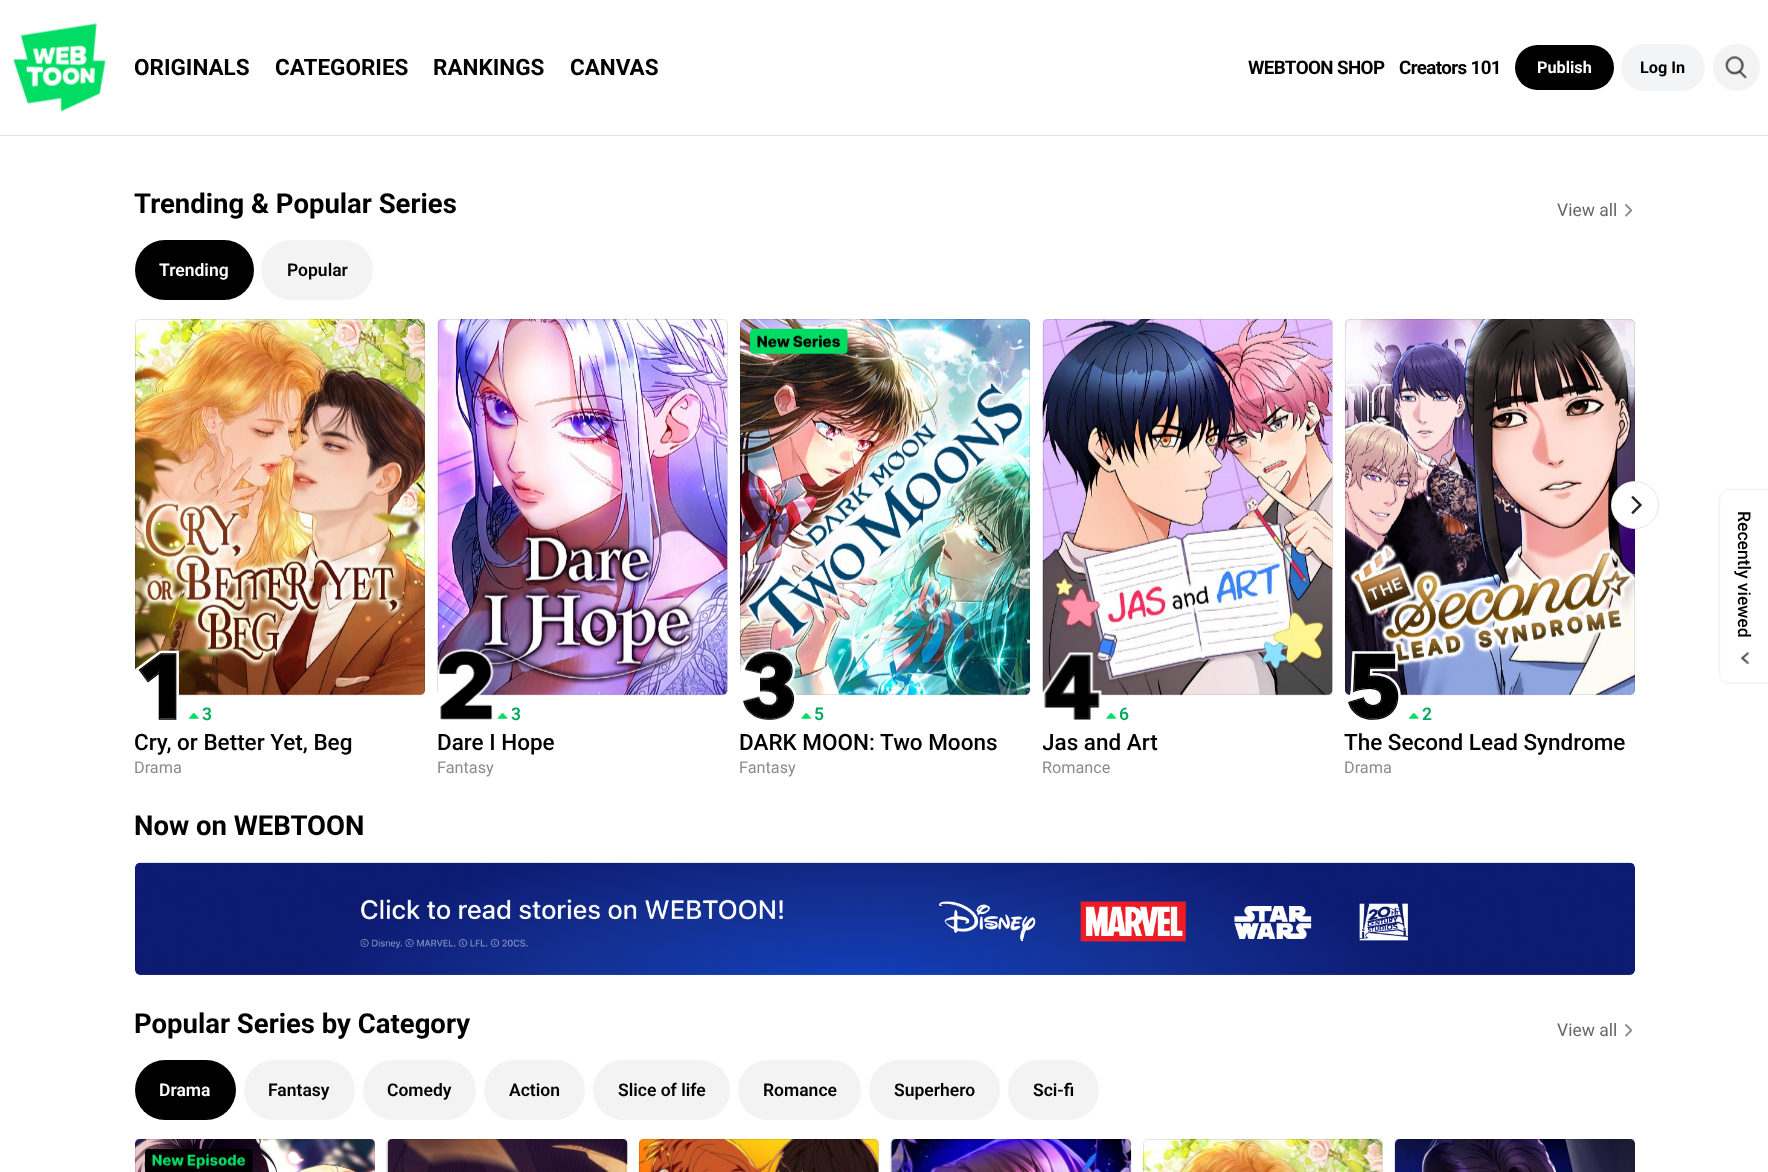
<!DOCTYPE html>
<meta charset="utf-8">
<style>body { margin: 0 } canvas { display: block }</style>
<canvas id="canvas" width="1768" height="1172"></canvas>
<img id="img1" src="images/1.png" hidden>
<img id="img2" src="images/2.png" hidden>
<img id="img3" src="images/3.png" hidden>
<img id="img4" src="images/17.png" hidden>
<img id="img5" src="images/4.png" hidden>
<img id="img6" src="images/5.png" hidden>
<img id="img7" src="images/6.png" hidden>
<img id="img8" src="images/7.png" hidden>
<img id="img9" src="images/8.png" hidden>
<img id="img10" src="images/9.png" hidden>
<img id="img11" src="images/10.png" hidden>
<img id="img12" src="images/11.png" hidden>
<img id="img13" src="images/12.png" hidden>
<img id="img14" src="images/13.png" hidden>
<img id="img15" src="images/14.png" hidden>
<img id="img16" src="images/15.png" hidden>
<img id="img17" src="images/16.png" hidden>
<img id="img18" src="images/18.png" hidden>
<img id="img19" src="images/19.png" hidden>
<img id="img20" src="images/20.png" hidden>
<img id="img21" src="images/21.png" hidden>
<img id="img22" src="images/22.png" hidden>
<img id="img23" src="images/23.png" hidden>
<img id="img24" src="images/24.png" hidden>
<img id="img25" src="images/25.png" hidden>
<img id="img26" src="images/26.png" hidden>
<img id="img27" src="images/27.png" hidden>
<img id="img28" src="images/28.png" hidden>
<script>
window.onload = function () {
    const canvas = document.getElementById('canvas');
    const context = canvas.getContext('2d');
    context.miterLimit = 4;
    context.fontKerning = 'normal';

    context.fillStyle = 'rgb(255, 255, 255)';
    context.fillRect(0, 0, 1768, 1172);
    context.fillStyle = 'rgb(224, 224, 224)';
    context.fillRect(0, 135, 1768, 1);
    context.drawImage(document.getElementById('img1'), 13, 23, 93, 89);
    context.fillStyle = 'rgb(0, 0, 0)';
    context.beginPath();
    context.roundRect(1515, 45, 99, 45, 22.5);
    context.fill();
    context.fillStyle = 'rgb(243, 244, 245)';
    context.beginPath();
    context.roundRect(1621, 44, 84, 47, 23.5);
    context.fill();
    context.fillStyle = 'rgb(243, 243, 243)';
    context.beginPath();
    context.arc(1736.5, 67.5, 23.5, 0, 2 * Math.PI);
    context.fill();
    context.drawImage(document.getElementById('img2'), 1724, 56, 23, 23);
    context.drawImage(document.getElementById('img3'), 1625, 204, 8, 13);
    context.fillStyle = 'rgb(0, 0, 0)';
    context.beginPath();
    context.roundRect(135, 240, 119, 60, 30);
    context.fill();
    context.fillStyle = 'rgb(243, 243, 243)';
    context.beginPath();
    context.roundRect(261, 240, 112, 60, 30);
    context.fill();
    context.drawImage(document.getElementById('img4'), 1345, 319, 290, 377);
    context.beginPath();
    context.roundRect(1345.5, 319.5, 289, 375, 4.5);
    context.strokeStyle = 'rgba(0, 0, 0, 0.1)';
    context.stroke();
    context.fillStyle = 'rgb(255, 255, 255)';
    context.beginPath();
    context.arc(1635, 505, 24, 0, 2 * Math.PI);
    context.fill();
    context.beginPath();
    context.arc(1635, 505, 23.5, 0, 2 * Math.PI);
    context.stroke();
    context.drawImage(document.getElementById('img5'), 1631, 495, 11, 20);
    context.drawImage(document.getElementById('img6'), 135, 319, 290, 377);
    context.beginPath();
    context.roundRect(135.5, 319.5, 289, 375, 4.5);
    context.stroke();
    context.drawImage(document.getElementById('img7'), 135, 650, 44, 70);
    context.drawImage(document.getElementById('img8'), 188, 712, 11, 7);
    context.drawImage(document.getElementById('img9'), 437, 319, 291, 377);
    context.beginPath();
    context.roundRect(438.5, 319.5, 289, 375, 4.5);
    context.stroke();
    context.drawImage(document.getElementById('img10'), 437, 648, 57, 72);
    context.drawImage(document.getElementById('img11'), 497, 712, 11, 7);
    context.drawImage(document.getElementById('img12'), 740, 319, 290, 377);
    context.drawImage(document.getElementById('img13'), 750, 328, 98, 26);
    context.beginPath();
    context.roundRect(740.5, 319.5, 289, 375, 4.5);
    context.stroke();
    context.drawImage(document.getElementById('img14'), 740, 648, 56, 72);
    context.drawImage(document.getElementById('img15'), 801, 712, 11, 7);
    context.drawImage(document.getElementById('img16'), 1042, 319, 291, 377);
    context.beginPath();
    context.roundRect(1043.5, 319.5, 289, 375, 4.5);
    context.stroke();
    context.drawImage(document.getElementById('img17'), 1043, 652, 59, 68);
    context.drawImage(document.getElementById('img15'), 1106, 712, 11, 7);
    context.drawImage(document.getElementById('img18'), 1348, 651, 53, 69);
    context.drawImage(document.getElementById('img8'), 1408, 712, 11, 7);
    context.drawImage(document.getElementById('img19'), 134, 862, 1501, 113);
    context.drawImage(document.getElementById('img3'), 1625, 1024, 8, 13);
    context.fillStyle = 'rgb(0, 0, 0)';
    context.beginPath();
    context.roundRect(135, 1060, 101, 60, 30);
    context.fill();
    context.fillStyle = 'rgb(243, 243, 243)';
    context.beginPath();
    context.roundRect(244, 1060, 111, 60, 30);
    context.fill();
    context.beginPath();
    context.roundRect(363, 1060, 113, 60, 30);
    context.fill();
    context.beginPath();
    context.roundRect(484, 1060, 101, 60, 30);
    context.fill();
    context.beginPath();
    context.roundRect(593, 1060, 137, 60, 30);
    context.fill();
    context.beginPath();
    context.roundRect(738, 1060, 123, 60, 30);
    context.fill();
    context.beginPath();
    context.roundRect(869, 1060, 131, 60, 30);
    context.fill();
    context.beginPath();
    context.roundRect(1008, 1060, 91, 60, 30);
    context.fill();
    context.drawImage(document.getElementById('img20'), 135, 1139, 240, 33);
    context.drawImage(document.getElementById('img21'), 145, 1149, 108, 23);
    context.beginPath();
    context.roundRect(135.5, 1139.5, 239, 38, 4.5);
    context.stroke();
    context.drawImage(document.getElementById('img22'), 387, 1139, 241, 33);
    context.beginPath();
    context.roundRect(386.5, 1139.5, 239, 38, 4.5);
    context.stroke();
    context.drawImage(document.getElementById('img23'), 638, 1139, 241, 33);
    context.beginPath();
    context.roundRect(639.5, 1139.5, 239, 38, 4.5);
    context.stroke();
    context.drawImage(document.getElementById('img24'), 891, 1139, 241, 33);
    context.beginPath();
    context.roundRect(890.5, 1139.5, 239, 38, 4.5);
    context.stroke();
    context.drawImage(document.getElementById('img25'), 1142, 1139, 241, 33);
    context.beginPath();
    context.roundRect(1143.5, 1139.5, 239, 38, 4.5);
    context.stroke();
    context.drawImage(document.getElementById('img26'), 1395, 1139, 240, 33);
    context.beginPath();
    context.roundRect(1394.5, 1139.5, 239, 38, 4.5);
    context.stroke();
    context.drawImage(document.getElementById('img27'), 1718, 488, 50, 196);
    context.drawImage(document.getElementById('img28'), 1741, 652, 8, 12);
    context.font = 'bold 22.5px Roboto';
    context.fillStyle = 'rgb(0, 0, 0)';
    context.fillText('ORIGINALS', 134, 75);
    context.fillText('CATEGORIES', 275, 75);
    context.fillText('RANKINGS', 433, 75);
    context.fillText('CANVAS', 570, 75);
    context.letterSpacing = '-0.6px';
    context.font = 'bold 18.75px Roboto';
    context.fillText('WEBTOON SHOP', 1248, 74);
    context.fillText('Creators 101', 1399, 74);
    context.letterSpacing = '0px';
    context.font = 'bold 16.25px Roboto';
    context.fillStyle = 'rgb(255, 255, 255)';
    context.fillText('Publish', 1537, 73);
    context.fillStyle = 'rgb(0, 0, 0)';
    context.fillText('Log In', 1640, 73);
    context.font = 'bold 27.5px Roboto';
    context.fillText('Trending & Popular Series', 134, 213);
    context.font = '17.5px Roboto';
    context.fillStyle = 'rgb(102, 102, 102)';
    context.fillText('View all', 1557, 216);
    context.font = '600 17.5px Roboto';
    context.fillStyle = 'rgb(255, 255, 255)';
    context.fillText('Trending', 159, 276);
    context.fillStyle = 'rgb(0, 0, 0)';
    context.fillText('Popular', 287, 276);
    context.fillStyle = 'rgb(3, 170, 90)';
    context.fillText('3', 202, 720);
    context.font = '500 22.5px Roboto';
    context.fillStyle = 'rgb(0, 0, 0)';
    context.fillText('Cry, or Better Yet, Beg', 134, 750);
    context.font = '16.25px Roboto';
    context.fillStyle = 'rgb(140, 140, 140)';
    context.fillText('Drama', 134, 773);
    context.font = '600 17.5px Roboto';
    context.fillStyle = 'rgb(3, 170, 90)';
    context.fillText('3', 511, 720);
    context.font = '500 22.5px Roboto';
    context.fillStyle = 'rgb(0, 0, 0)';
    context.fillText('Dare I Hope', 437, 750);
    context.font = '16.25px Roboto';
    context.fillStyle = 'rgb(140, 140, 140)';
    context.fillText('Fantasy', 437, 773);
    context.font = '600 17.5px Roboto';
    context.fillStyle = 'rgb(3, 170, 90)';
    context.fillText('5', 814, 720);
    context.font = '500 22.5px Roboto';
    context.fillStyle = 'rgb(0, 0, 0)';
    context.fillText('DARK MOON: Two Moons', 739, 750);
    context.font = '16.25px Roboto';
    context.fillStyle = 'rgb(140, 140, 140)';
    context.fillText('Fantasy', 739, 773);
    context.font = '600 17.5px Roboto';
    context.fillStyle = 'rgb(3, 170, 90)';
    context.fillText('6', 1119, 720);
    context.save();
    context.beginPath();
    context.rect(1043, 729, 290, 26);
    context.clip();
    context.font = '500 22.5px Roboto';
    context.fillStyle = 'rgb(0, 0, 0)';
    context.fillText('Jas and Art', 1042, 750);
    context.restore();
    context.font = '16.25px Roboto';
    context.fillStyle = 'rgb(140, 140, 140)';
    context.fillText('Romance', 1042, 773);
    context.font = '600 17.5px Roboto';
    context.fillStyle = 'rgb(3, 170, 90)';
    context.fillText('2', 1422, 720);
    context.font = '500 22.5px Roboto';
    context.fillStyle = 'rgb(0, 0, 0)';
    context.fillText('The Second Lead Syndrome', 1344, 750);
    context.font = '16.25px Roboto';
    context.fillStyle = 'rgb(140, 140, 140)';
    context.fillText('Drama', 1344, 773);
    context.font = 'bold 27.5px Roboto';
    context.fillStyle = 'rgb(0, 0, 0)';
    context.fillText('Now on WEBTOON', 134, 835);
    context.fillText('Popular Series by Category', 134, 1033);
    context.font = '17.5px Roboto';
    context.fillStyle = 'rgb(102, 102, 102)';
    context.fillText('View all', 1557, 1036);
    context.font = '600 17.5px Roboto';
    context.fillStyle = 'rgb(255, 255, 255)';
    context.fillText('Drama', 159, 1096);
    context.fillStyle = 'rgb(0, 0, 0)';
    context.fillText('Fantasy', 268, 1096);
    context.fillText('Comedy', 387, 1096);
    context.fillText('Action', 509, 1096);
    context.fillText('Slice of life', 618, 1096);
    context.fillText('Romance', 763, 1096);
    context.fillText('Superhero', 894, 1096);
    context.fillText('Sci-fi', 1033, 1096);
    context.font = '500 17.5px Roboto';
    context.save();
    context.translate(1738, 511);
    context.rotate(90 * Math.PI / 180);
    context.fillText('Recently viewed', 0, 0);
    context.restore();
};
</script>
